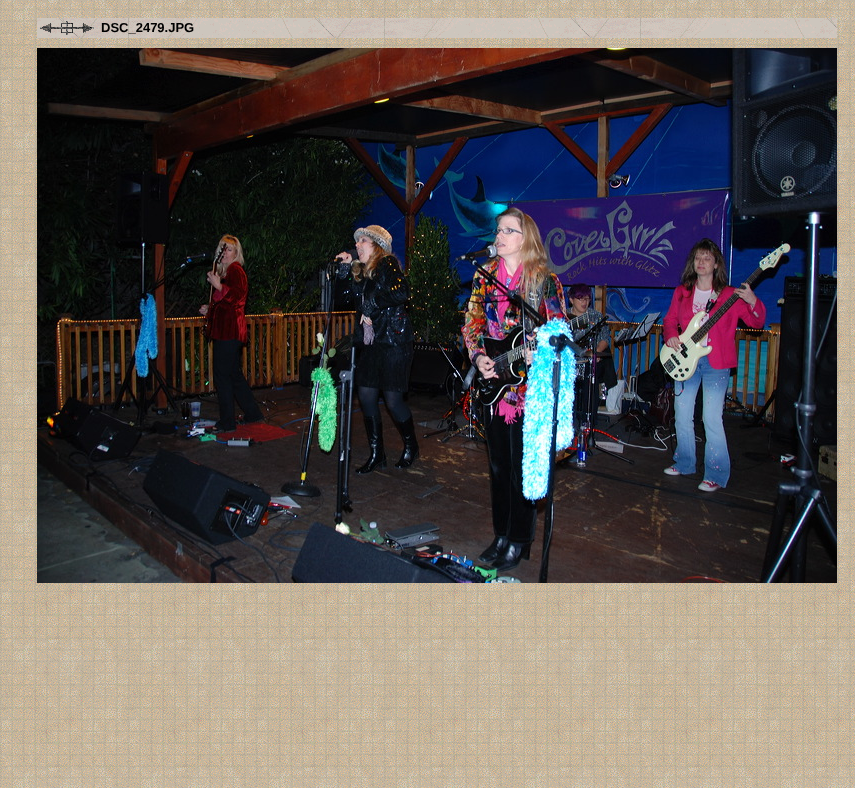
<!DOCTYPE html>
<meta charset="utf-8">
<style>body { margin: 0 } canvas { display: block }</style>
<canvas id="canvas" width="855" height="788"></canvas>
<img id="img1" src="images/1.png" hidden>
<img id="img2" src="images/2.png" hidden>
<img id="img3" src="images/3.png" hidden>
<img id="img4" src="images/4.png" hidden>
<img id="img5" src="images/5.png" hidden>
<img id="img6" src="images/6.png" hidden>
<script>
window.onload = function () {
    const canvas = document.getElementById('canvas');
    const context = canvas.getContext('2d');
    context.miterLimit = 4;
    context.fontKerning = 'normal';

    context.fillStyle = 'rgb(255, 255, 255)';
    context.fillRect(0, 0, 855, 788);
    context.drawImage(document.getElementById('img1'), 0, 0, 855, 788);
    context.drawImage(document.getElementById('img2'), 37, 18, 800, 20);
    context.drawImage(document.getElementById('img3'), 40, 23, 17, 10);
    context.drawImage(document.getElementById('img4'), 57, 21, 20, 14);
    context.drawImage(document.getElementById('img5'), 77, 23, 17, 10);
    context.drawImage(document.getElementById('img6'), 37, 48, 800, 535);
    context.font = 'bold 13px Liberation Sans';
    context.fillStyle = 'rgb(0, 0, 0)';
    context.fillText('DSC_2479.JPG', 101, 32);
};
</script>
